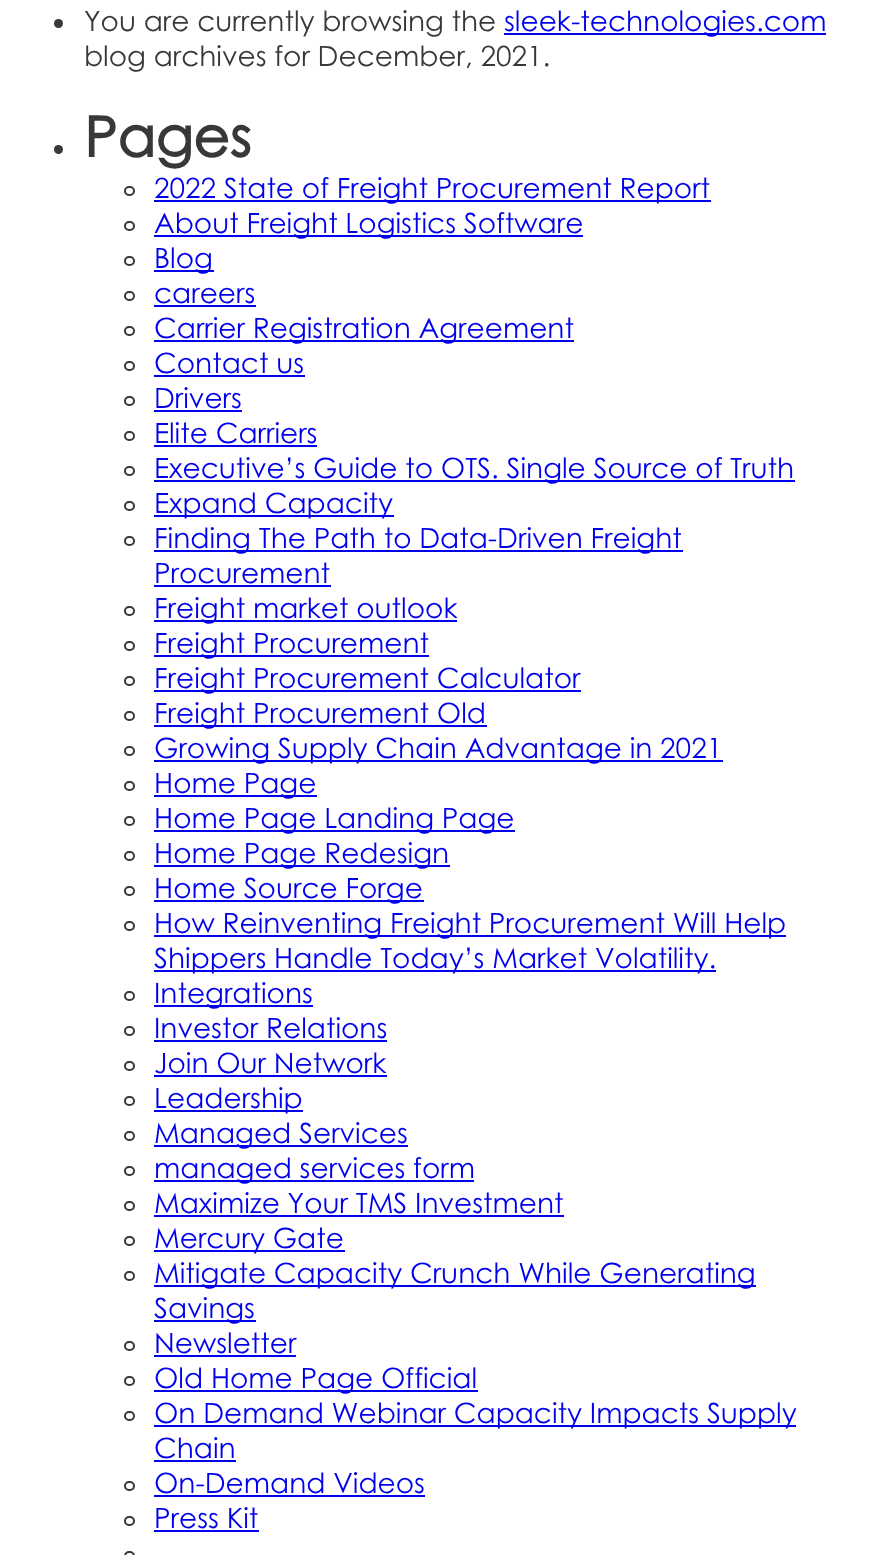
<!DOCTYPE html>
<meta charset="utf-8">
<style>body { margin: 0 } canvas { display: block }</style>
<canvas id="canvas" width="870" height="1555"></canvas>
<script>
window.onload = function () {
    const canvas = document.getElementById('canvas');
    const context = canvas.getContext('2d');
    context.miterLimit = 4;
    context.fontKerning = 'normal';

    context.fillStyle = 'rgb(255, 255, 255)';
    context.fillRect(0, 0, 870, 1555);
    context.fillStyle = 'rgb(56, 56, 56)';
    context.beginPath();
    context.arc(58.5, 23.5, 4.5, 0, 2 * Math.PI);
    context.fill();
    context.fillStyle = 'rgb(0, 0, 238)';
    context.fillRect(504, 33, 322, 2);
    context.fillStyle = 'rgb(56, 56, 56)';
    context.beginPath();
    context.arc(58.5, 149.5, 4.5, 0, 2 * Math.PI);
    context.fill();
    context.beginPath();
    context.roundRect(125, 187, 9, 8, 4);
    context.strokeStyle = 'rgb(56, 56, 56)';
    context.lineWidth = 2;
    context.stroke();
    context.fillStyle = 'rgb(0, 0, 238)';
    context.fillRect(154, 200, 557, 2);
    context.beginPath();
    context.roundRect(125, 222, 9, 8, 4);
    context.stroke();
    context.fillRect(154, 235, 429, 2);
    context.beginPath();
    context.roundRect(125, 257, 9, 8, 4);
    context.stroke();
    context.fillRect(154, 270, 60, 2);
    context.beginPath();
    context.roundRect(125, 292, 9, 8, 4);
    context.stroke();
    context.fillRect(154, 305, 102, 2);
    context.beginPath();
    context.roundRect(125, 327, 9, 8, 4);
    context.stroke();
    context.fillRect(154, 340, 420, 2);
    context.beginPath();
    context.roundRect(125, 362, 9, 8, 4);
    context.stroke();
    context.fillRect(154, 375, 151, 2);
    context.beginPath();
    context.roundRect(125, 397, 9, 8, 4);
    context.stroke();
    context.fillRect(154, 410, 88, 2);
    context.beginPath();
    context.roundRect(125, 432, 9, 8, 4);
    context.stroke();
    context.fillRect(154, 445, 163, 2);
    context.beginPath();
    context.roundRect(125, 467, 9, 8, 4);
    context.stroke();
    context.fillRect(154, 480, 641, 2);
    context.beginPath();
    context.roundRect(125, 502, 9, 8, 4);
    context.stroke();
    context.fillRect(154, 515, 240, 2);
    context.beginPath();
    context.roundRect(125, 537, 9, 8, 4);
    context.stroke();
    context.fillRect(154, 550, 529, 2);
    context.fillRect(154, 585, 177, 2);
    context.beginPath();
    context.roundRect(125, 607, 9, 8, 4);
    context.stroke();
    context.fillRect(154, 620, 303, 2);
    context.beginPath();
    context.roundRect(125, 642, 9, 8, 4);
    context.stroke();
    context.fillRect(154, 655, 275, 2);
    context.beginPath();
    context.roundRect(125, 677, 9, 8, 4);
    context.stroke();
    context.fillRect(154, 690, 427, 2);
    context.beginPath();
    context.roundRect(125, 712, 9, 8, 4);
    context.stroke();
    context.fillRect(154, 725, 333, 2);
    context.beginPath();
    context.roundRect(125, 747, 9, 8, 4);
    context.stroke();
    context.fillRect(154, 760, 569, 2);
    context.beginPath();
    context.roundRect(125, 782, 9, 8, 4);
    context.stroke();
    context.fillRect(154, 795, 163, 2);
    context.beginPath();
    context.roundRect(125, 817, 9, 8, 4);
    context.stroke();
    context.fillRect(154, 830, 361, 2);
    context.beginPath();
    context.roundRect(125, 852, 9, 8, 4);
    context.stroke();
    context.fillRect(154, 865, 296, 2);
    context.beginPath();
    context.roundRect(125, 887, 9, 8, 4);
    context.stroke();
    context.fillRect(154, 900, 270, 2);
    context.beginPath();
    context.roundRect(125, 922, 9, 8, 4);
    context.stroke();
    context.fillRect(154, 935, 632, 2);
    context.fillRect(154, 970, 562, 2);
    context.beginPath();
    context.roundRect(125, 992, 9, 8, 4);
    context.stroke();
    context.fillRect(154, 1005, 159, 2);
    context.beginPath();
    context.roundRect(125, 1027, 9, 8, 4);
    context.stroke();
    context.fillRect(154, 1040, 233, 2);
    context.beginPath();
    context.roundRect(125, 1062, 9, 8, 4);
    context.stroke();
    context.fillRect(154, 1075, 233, 2);
    context.beginPath();
    context.roundRect(125, 1097, 9, 8, 4);
    context.stroke();
    context.fillRect(154, 1110, 149, 2);
    context.beginPath();
    context.roundRect(125, 1132, 9, 8, 4);
    context.stroke();
    context.fillRect(154, 1145, 254, 2);
    context.beginPath();
    context.roundRect(125, 1167, 9, 8, 4);
    context.stroke();
    context.fillRect(154, 1180, 320, 2);
    context.beginPath();
    context.roundRect(125, 1202, 9, 8, 4);
    context.stroke();
    context.fillRect(154, 1215, 410, 2);
    context.beginPath();
    context.roundRect(125, 1237, 9, 8, 4);
    context.stroke();
    context.fillRect(154, 1250, 191, 2);
    context.beginPath();
    context.roundRect(125, 1272, 9, 8, 4);
    context.stroke();
    context.fillRect(154, 1285, 602, 2);
    context.fillRect(154, 1320, 102, 2);
    context.beginPath();
    context.roundRect(125, 1342, 9, 8, 4);
    context.stroke();
    context.fillRect(154, 1355, 142, 2);
    context.beginPath();
    context.roundRect(125, 1377, 9, 8, 4);
    context.stroke();
    context.fillRect(154, 1390, 324, 2);
    context.beginPath();
    context.roundRect(125, 1412, 9, 8, 4);
    context.stroke();
    context.fillRect(154, 1425, 642, 2);
    context.fillRect(154, 1460, 82, 2);
    context.beginPath();
    context.roundRect(125, 1482, 9, 8, 4);
    context.stroke();
    context.fillRect(154, 1495, 271, 2);
    context.beginPath();
    context.roundRect(125, 1517, 9, 8, 4);
    context.stroke();
    context.fillRect(154, 1530, 105, 2);
    context.beginPath();
    context.roundRect(125, 1552, 9, 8, 4);
    context.stroke();
    context.font = '28px Century Gothic';
    context.fillStyle = 'rgb(56, 56, 56)';
    context.fillText('You are currently browsing the', 84, 31);
    context.fillStyle = 'rgb(0, 0, 238)';
    context.fillText('sleek-technologies.com', 504, 31);
    context.fillStyle = 'rgb(56, 56, 56)';
    context.fillText('blog archives for December, 2021.', 84, 66);
    context.font = 'bold 56px Century Gothic';
    context.fillText('Pages', 84, 157);
    context.font = '28px Century Gothic';
    context.fillStyle = 'rgb(0, 0, 238)';
    context.fillText('2022 State of Freight Procurement Report', 154, 198);
    context.fillText('About Freight Logistics Software', 154, 233);
    context.fillText('Blog', 154, 268);
    context.fillText('careers', 154, 303);
    context.fillText('Carrier Registration Agreement', 154, 338);
    context.fillText('Contact us', 154, 373);
    context.fillText('Drivers', 154, 408);
    context.fillText('Elite Carriers', 154, 443);
    context.fillText('Executive’s Guide to OTS. Single Source of Truth', 154, 478);
    context.fillText('Expand Capacity', 154, 513);
    context.fillText('Finding The Path to Data-Driven Freight', 154, 548);
    context.fillText('Procurement', 154, 583);
    context.fillText('Freight market outlook', 154, 618);
    context.fillText('Freight Procurement', 154, 653);
    context.fillText('Freight Procurement Calculator', 154, 688);
    context.fillText('Freight Procurement Old', 154, 723);
    context.fillText('Growing Supply Chain Advantage in 2021', 154, 758);
    context.fillText('Home Page', 154, 793);
    context.fillText('Home Page Landing Page', 154, 828);
    context.fillText('Home Page Redesign', 154, 863);
    context.fillText('Home Source Forge', 154, 898);
    context.fillText('How Reinventing Freight Procurement Will Help', 154, 933);
    context.fillText('Shippers Handle Today’s Market Volatility.', 154, 968);
    context.fillText('Integrations', 154, 1003);
    context.fillText('Investor Relations', 154, 1038);
    context.fillText('Join Our Network', 154, 1073);
    context.fillText('Leadership', 154, 1108);
    context.fillText('Managed Services', 154, 1143);
    context.fillText('managed services form', 154, 1178);
    context.fillText('Maximize Your TMS Investment', 154, 1213);
    context.fillText('Mercury Gate', 154, 1248);
    context.fillText('Mitigate Capacity Crunch While Generating', 154, 1283);
    context.fillText('Savings', 154, 1318);
    context.fillText('Newsletter', 154, 1353);
    context.fillText('Old Home Page Official', 154, 1388);
    context.fillText('On Demand Webinar Capacity Impacts Supply', 154, 1423);
    context.fillText('Chain', 154, 1458);
    context.fillText('On-Demand Videos', 154, 1493);
    context.fillText('Press Kit', 154, 1528);
};
</script>
